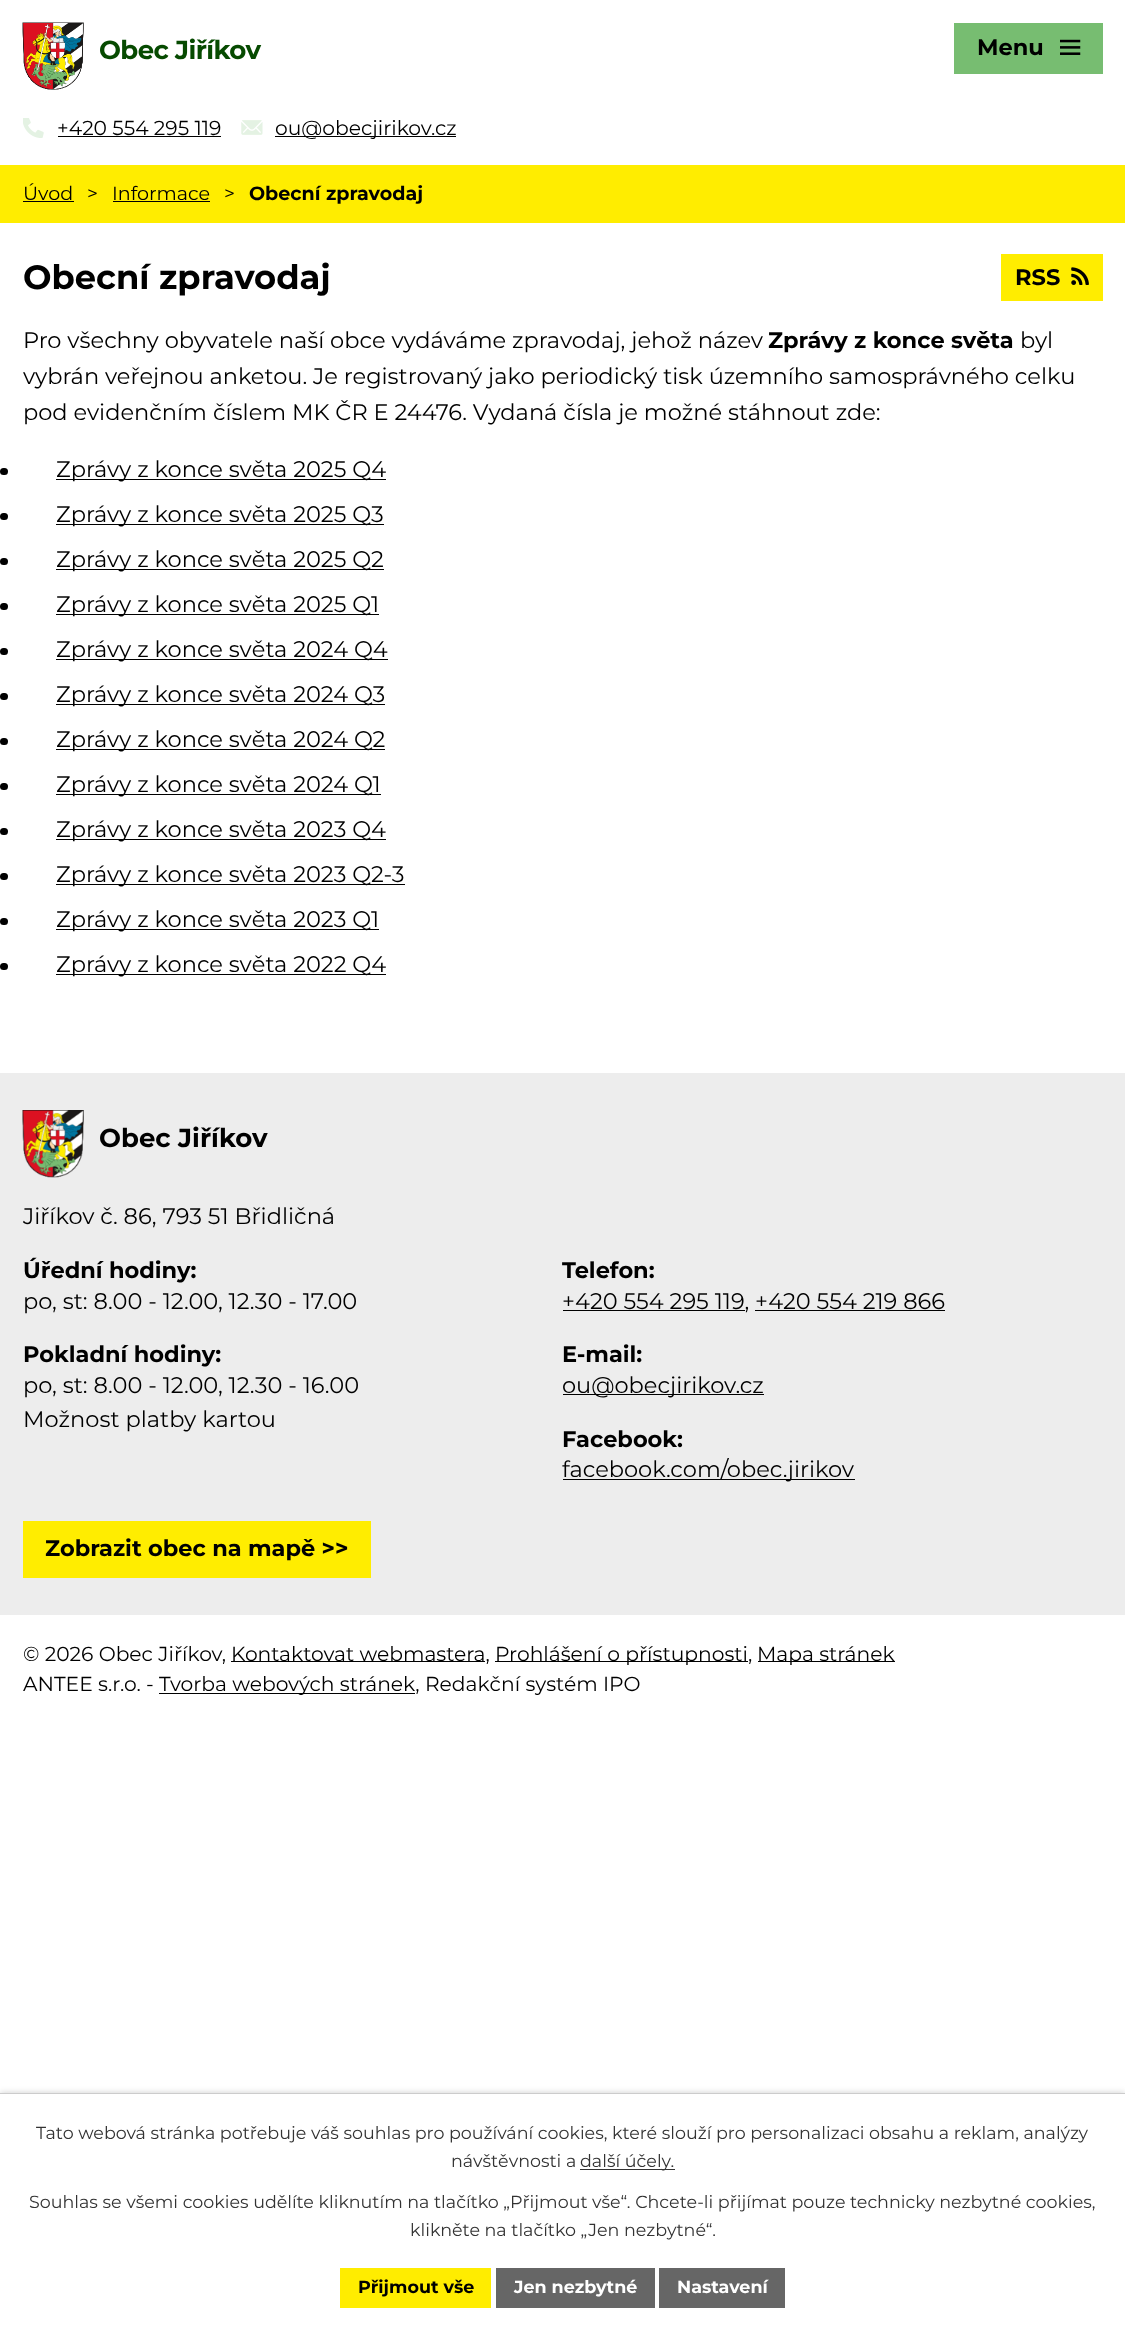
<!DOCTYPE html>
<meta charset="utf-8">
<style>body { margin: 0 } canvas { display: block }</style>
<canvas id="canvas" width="1125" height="2331"></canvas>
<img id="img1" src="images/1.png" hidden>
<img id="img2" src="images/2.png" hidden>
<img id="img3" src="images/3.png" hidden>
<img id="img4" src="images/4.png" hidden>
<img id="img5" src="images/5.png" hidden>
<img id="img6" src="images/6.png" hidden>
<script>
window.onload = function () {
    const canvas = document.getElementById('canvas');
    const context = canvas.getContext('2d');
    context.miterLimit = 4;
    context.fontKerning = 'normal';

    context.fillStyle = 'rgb(255, 255, 255)';
    context.fillRect(0, 0, 1125, 2331);
    context.drawImage(document.getElementById('img1'), 22, 22, 62, 68);
    context.drawImage(document.getElementById('img2'), 23, 118, 21, 20);
    context.fillStyle = 'rgb(0, 0, 0)';
    context.fillRect(58, 136, 163, 1);
    context.drawImage(document.getElementById('img3'), 241, 120, 22, 15);
    context.fillRect(275, 136, 181, 1);
    context.fillStyle = 'rgb(119, 189, 113)';
    context.fillRect(954, 23, 149, 51);
    context.drawImage(document.getElementById('img4'), 1060, 39, 21, 16);
    context.fillStyle = 'rgb(255, 237, 0)';
    context.fillRect(0, 165, 1125, 58);
    context.fillStyle = 'rgb(0, 0, 0)';
    context.fillRect(23, 201, 51, 1);
    context.fillRect(113, 201, 97, 1);
    context.fillStyle = 'rgb(255, 237, 0)';
    context.fillRect(1001, 254, 102, 47);
    context.drawImage(document.getElementById('img5'), 1071, 267, 18, 18);
    context.fillStyle = 'rgb(0, 0, 0)';
    context.beginPath();
    context.roundRect(0, 468, 8, 7, 3.5);
    context.fill();
    context.fillRect(56, 479, 330, 1);
    context.beginPath();
    context.roundRect(0, 513, 8, 7, 3.5);
    context.fill();
    context.fillRect(56, 524, 328, 1);
    context.beginPath();
    context.roundRect(0, 558, 8, 7, 3.5);
    context.fill();
    context.fillRect(56, 569, 328, 1);
    context.beginPath();
    context.roundRect(0, 603, 8, 7, 3.5);
    context.fill();
    context.fillRect(56, 614, 323, 1);
    context.beginPath();
    context.roundRect(0, 648, 8, 7, 3.5);
    context.fill();
    context.fillRect(56, 659, 332, 1);
    context.beginPath();
    context.roundRect(0, 693, 8, 7, 3.5);
    context.fill();
    context.fillRect(56, 704, 329, 1);
    context.beginPath();
    context.roundRect(0, 738, 8, 7, 3.5);
    context.fill();
    context.fillRect(56, 749, 329, 1);
    context.beginPath();
    context.roundRect(0, 783, 8, 7, 3.5);
    context.fill();
    context.fillRect(56, 794, 325, 1);
    context.beginPath();
    context.roundRect(0, 828, 8, 7, 3.5);
    context.fill();
    context.fillRect(56, 839, 330, 1);
    context.beginPath();
    context.roundRect(0, 873, 8, 7, 3.5);
    context.fill();
    context.fillRect(56, 884, 349, 1);
    context.beginPath();
    context.roundRect(0, 918, 8, 7, 3.5);
    context.fill();
    context.fillRect(56, 929, 323, 1);
    context.beginPath();
    context.roundRect(0, 963, 8, 7, 3.5);
    context.fill();
    context.fillRect(56, 974, 330, 1);
    context.fillStyle = 'rgb(237, 237, 237)';
    context.fillRect(0, 1073, 1125, 542);
    context.drawImage(document.getElementById('img6'), 22, 1110, 62, 68);
    context.fillStyle = 'rgb(0, 0, 0)';
    context.fillRect(563, 1310, 182, 1);
    context.fillRect(755, 1310, 190, 1);
    context.fillRect(563, 1394, 201, 1);
    context.fillRect(563, 1479, 292, 1);
    context.fillStyle = 'rgb(255, 237, 0)';
    context.fillRect(23, 1521, 348, 57);
    context.fillStyle = 'rgb(0, 0, 0)';
    context.fillRect(231, 1661, 254, 1);
    context.fillRect(495, 1661, 253, 1);
    context.fillRect(758, 1661, 137, 1);
    context.fillRect(159, 1693, 256, 1);
    context.fillStyle = 'rgba(0, 0, 0, 0.2)';
    context.filter = 'blur(3px)';
    context.beginPath();
    context.rect(0, 2093, 1125, 238);
    context.fill();
    context.filter = 'none';
    context.fillStyle = 'rgb(255, 255, 255)';
    context.fillRect(0, 2094, 1125, 237);
    context.fillStyle = 'rgb(204, 204, 204)';
    context.fillRect(0, 2093, 1125, 1);
    context.fillStyle = 'rgb(51, 51, 51)';
    context.fillRect(580, 2169, 95, 1);
    context.fillStyle = 'rgb(255, 237, 0)';
    context.fillRect(340, 2268, 151, 40);
    context.fillStyle = 'rgb(102, 102, 102)';
    context.fillRect(496, 2268, 159, 40);
    context.fillRect(659, 2268, 126, 40);
    context.letterSpacing = '-0.6px';
    context.font = 'bold 26px Montserrat';
    context.fillStyle = 'rgb(6, 74, 0)';
    context.fillText('Obec Jiříkov', 99, 59);
    context.letterSpacing = '0px';
    context.font = '20.25px Montserrat';
    context.fillStyle = 'rgb(0, 0, 0)';
    context.fillText('+420 554 295 119', 57, 135);
    context.fillText('ou@obecjirikov.cz', 275, 135);
    context.font = 'bold 22.5px Montserrat';
    context.fillText('Menu', 977, 55);
    context.font = '19.1px Montserrat';
    context.fillText('Úvod', 23, 200);
    context.fillText('>', 87, 200);
    context.fillText('Informace', 112, 200);
    context.fillText('>', 224, 200);
    context.font = 'bold 19.1px Montserrat';
    context.fillText('Obecní zpravodaj', 249, 200);
    context.font = 'bold 33.75px Montserrat';
    context.fillText('Obecní zpravodaj', 23, 289);
    context.font = 'bold 22.5px Montserrat';
    context.fillText('RSS', 1015, 285);
    context.font = '22.5px Montserrat';
    context.fillText('Pro všechny obyvatele naší obce vydáváme zpravodaj, jehož název', 23, 348);
    context.font = 'bold 22.5px Montserrat';
    context.fillText('Zprávy z konce světa', 768, 348);
    context.font = '22.5px Montserrat';
    context.fillText('byl', 1020, 348);
    context.fillText('vybrán veřejnou anketou. Je registrovaný jako periodický tisk územního samosprávného celku', 23, 384);
    context.fillText('pod evidenčním číslem MK ČR E 24476. Vydaná čísla je možné stáhnout zde:', 23, 420);
    context.fillText('Zprávy z konce světa 2025 Q4', 56, 477);
    context.fillText('Zprávy z konce světa 2025 Q3', 56, 522);
    context.fillText('Zprávy z konce světa 2025 Q2', 56, 567);
    context.fillText('Zprávy z konce světa 2025 Q1', 56, 612);
    context.fillText('Zprávy z konce světa 2024 Q4', 56, 657);
    context.fillText('Zprávy z konce světa 2024 Q3', 56, 702);
    context.fillText('Zprávy z konce světa 2024 Q2', 56, 747);
    context.fillText('Zprávy z konce světa 2024 Q1', 56, 792);
    context.fillText('Zprávy z konce světa 2023 Q4', 56, 837);
    context.fillText('Zprávy z konce světa 2023 Q2-3', 56, 882);
    context.fillText('Zprávy z konce světa 2023 Q1', 56, 927);
    context.fillText('Zprávy z konce světa 2022 Q4', 56, 972);
    context.font = 'bold 26px Montserrat';
    context.fillText('Obec Jiříkov', 99, 1147);
    context.font = '22.5px Montserrat';
    context.fillText('Jiříkov č. 86, 793 51 Břidličná', 23, 1224);
    context.font = 'bold 22.5px Montserrat';
    context.fillText('Úřední hodiny:', 23, 1278);
    context.font = '22.5px Montserrat';
    context.fillText('po, st: 8.00 - 12.00, 12.30 - 17.00', 23, 1309);
    context.font = 'bold 22.5px Montserrat';
    context.fillText('Pokladní hodiny:', 23, 1362);
    context.font = '22.5px Montserrat';
    context.fillText('po, st: 8.00 - 12.00, 12.30 - 16.00', 23, 1393);
    context.fillText('Možnost platby kartou', 23, 1427);
    context.font = 'bold 22.5px Montserrat';
    context.fillText('Telefon:', 562, 1278);
    context.font = '22.5px Montserrat';
    context.fillText('+420 554 295 119, +420 554 219 866', 562, 1309);
    context.font = 'bold 22.5px Montserrat';
    context.fillText('E-mail:', 562, 1362);
    context.font = '22.5px Montserrat';
    context.fillText('ou@obecjirikov.cz', 562, 1393);
    context.font = 'bold 22.5px Montserrat';
    context.fillText('Facebook:', 562, 1447);
    context.font = '22.5px Montserrat';
    context.fillText('facebook.com/obec.jirikov', 562, 1477);
    context.font = 'bold 22.5px Montserrat';
    context.fillText('Zobrazit obec na mapě >>', 45, 1556);
    context.font = '20.25px Montserrat';
    context.fillText('© 2026 Obec Jiříkov,', 23, 1661);
    context.fillText('Kontaktovat webmastera,', 231, 1661);
    context.fillText('Prohlášení o přístupnosti,', 495, 1661);
    context.fillText('Mapa stránek', 757, 1661);
    context.fillText('ANTEE s.r.o. -', 23, 1691);
    context.fillText('Tvorba webových stránek, Redakční systém IPO', 159, 1691);
    context.font = '17.5px Montserrat';
    context.fillStyle = 'rgb(51, 51, 51)';
    context.fillText('Tato webová stránka potřebuje váš souhlas pro používání cookies, které slouží pro personalizaci obsahu a reklam, analýzy', 36, 2139);
    context.fillText('návštěvnosti a', 451, 2167);
    context.fillText('další účely.', 580, 2167);
    context.fillText('Souhlas se všemi cookies udělíte kliknutím na tlačítko „Přijmout vše“. Chcete-li přijímat pouze technicky nezbytné cookies,', 29, 2208);
    context.fillText('klikněte na tlačítko „Jen nezbytné“.', 410, 2236);
    context.font = 'bold 17.5px Montserrat';
    context.fillStyle = 'rgb(0, 0, 0)';
    context.fillText('Přijmout vše', 358, 2293);
    context.fillStyle = 'rgb(255, 255, 255)';
    context.fillText('Jen nezbytné', 514, 2293);
    context.fillText('Nastavení', 677, 2293);
};
</script>
